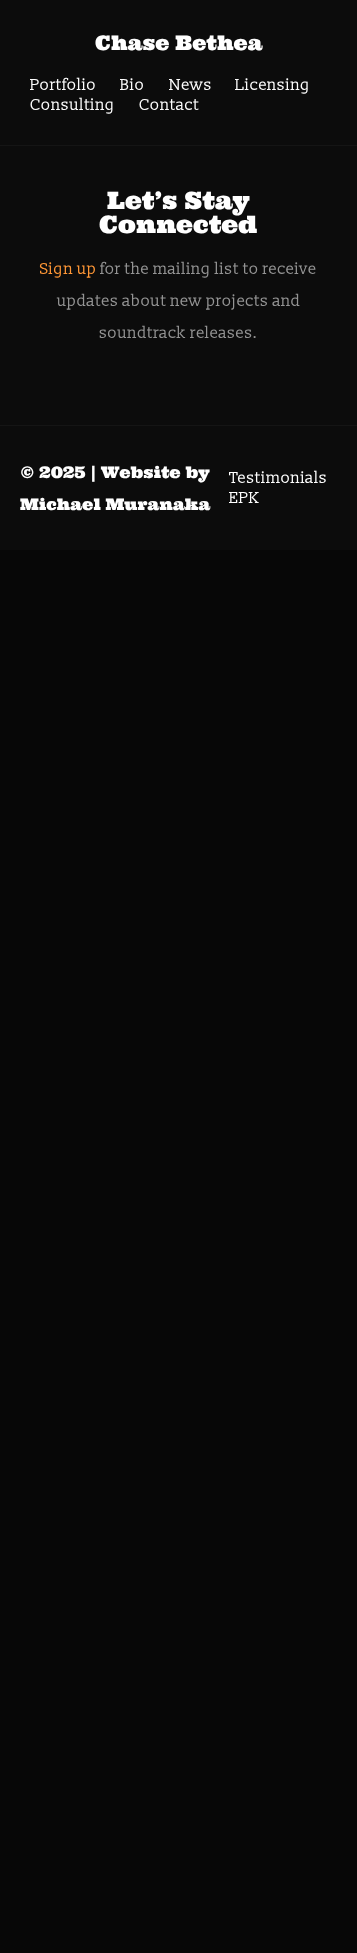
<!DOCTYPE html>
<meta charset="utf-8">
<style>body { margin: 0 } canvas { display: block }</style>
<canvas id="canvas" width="357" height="1953"></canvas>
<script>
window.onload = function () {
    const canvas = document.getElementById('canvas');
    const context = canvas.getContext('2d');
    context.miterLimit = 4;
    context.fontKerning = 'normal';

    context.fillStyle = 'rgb(7, 7, 7)';
    context.fillRect(0, 0, 357, 1953);
    context.fillStyle = 'rgb(12, 12, 12)';
    context.fillRect(0, 0, 357, 145);
    context.fillStyle = 'rgb(21, 21, 21)';
    context.fillRect(0, 145, 357, 1);
    context.fillStyle = 'rgb(12, 12, 12)';
    context.fillRect(0, 146, 357, 279);
    context.fillRect(0, 426, 357, 124);
    context.fillStyle = 'rgb(21, 21, 21)';
    context.fillRect(0, 425, 357, 1);
    context.font = '20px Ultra';
    context.fillStyle = 'rgb(255, 255, 255)';
    context.fillText('Chase Bethea', 95, 50);
    context.font = '16px "Slabo 13px"';
    context.fillText('Portfolio', 30, 90);
    context.fillText('Bio', 120, 90);
    context.fillText('News', 169, 90);
    context.fillText('Licensing', 235, 90);
    context.fillText('Consulting', 30, 110);
    context.fillText('Contact', 139, 110);
    context.font = '24px Ultra';
    context.fillText('Let’s Stay', 107, 209);
    context.fillText('Connected', 99, 233);
    context.font = '16px "Slabo 13px"';
    context.fillStyle = 'rgb(255, 151, 54)';
    context.fillText('Sign up', 40, 274);
    context.fillStyle = 'rgb(148, 148, 148)';
    context.fillText('for the mailing list to receive', 100, 274);
    context.fillText('updates about new projects and', 57, 306);
    context.fillText('soundtrack releases.', 99, 338);
    context.font = '16px Ultra';
    context.fillStyle = 'rgb(255, 255, 255)';
    context.fillText('© 2025 | Website by', 20, 478);
    context.fillText('Michael Muranaka', 20, 510);
    context.font = '16px "Slabo 13px"';
    context.fillText('Testimonials', 229, 483);
    context.fillText('EPK', 229, 503);
};
</script>
